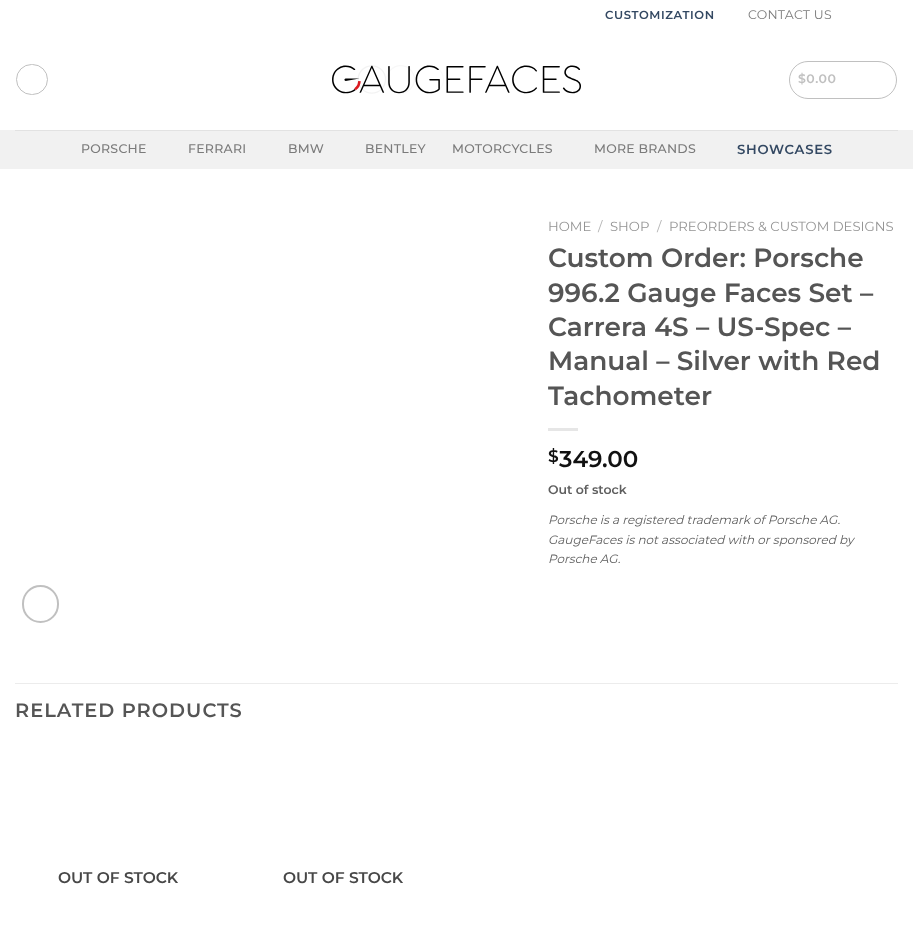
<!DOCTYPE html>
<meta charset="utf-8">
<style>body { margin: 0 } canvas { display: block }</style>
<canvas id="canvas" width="913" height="941"></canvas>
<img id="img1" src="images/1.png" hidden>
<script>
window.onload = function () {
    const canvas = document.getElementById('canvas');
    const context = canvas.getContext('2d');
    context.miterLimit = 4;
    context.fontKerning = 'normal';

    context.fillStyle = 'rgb(255, 255, 255)';
    context.fillRect(0, 0, 913, 941);
    context.beginPath();
    context.roundRect(16.5, 64.5, 31, 30, 15);
    context.strokeStyle = 'rgb(192, 192, 192)';
    context.stroke();
    context.drawImage(document.getElementById('img1'), 332, 65, 249, 29);
    context.beginPath();
    context.roundRect(789.5, 61.5, 107, 37, 18.5);
    context.stroke();
    context.fillStyle = 'rgb(241, 241, 241)';
    context.fillRect(0, 130, 913, 39);
    context.fillStyle = 'rgb(226, 226, 226)';
    context.fillRect(15, 130, 883, 1);
    context.fillStyle = 'rgb(230, 230, 230)';
    context.fillRect(548, 428, 30, 3);
    context.beginPath();
    context.roundRect(23, 586, 35, 36, 17.5);
    context.lineWidth = 2;
    context.stroke();
    context.fillStyle = 'rgb(236, 236, 236)';
    context.fillRect(15, 683, 883, 1);
    context.letterSpacing = '0.6px';
    context.font = '600 11.6px Montserrat';
    context.fillStyle = 'rgb(51, 72, 98)';
    context.fillText('CUSTOMIZATION', 605, 19);
    context.letterSpacing = '0.25px';
    context.font = '12.5px Montserrat';
    context.fillStyle = 'rgb(123, 123, 123)';
    context.fillText('CONTACT US', 748, 19);
    context.letterSpacing = '0.5px';
    context.font = '600 12.5px Montserrat';
    context.fillStyle = 'rgb(192, 192, 192)';
    context.fillText('$0.00', 798, 83);
    context.letterSpacing = '0.25px';
    context.font = '500 12.5px Montserrat';
    context.fillStyle = 'rgb(123, 123, 123)';
    context.fillText('PORSCHE', 81, 153);
    context.fillText('FERRARI', 188, 153);
    context.fillText('BMW', 288, 153);
    context.fillText('BENTLEY', 365, 153);
    context.fillText('MOTORCYCLES', 452, 153);
    context.fillText('MORE BRANDS', 594, 153);
    context.letterSpacing = '0.75px';
    context.font = '600 13.2px Montserrat';
    context.fillStyle = 'rgb(51, 72, 98)';
    context.fillText('SHOWCASES', 737, 154);
    context.letterSpacing = '0px';
    context.font = '13.2px Montserrat';
    context.fillStyle = 'rgb(148, 148, 148)';
    context.fillText('HOME', 548, 231);
    context.fillStyle = 'rgb(178, 178, 178)';
    context.fillText('/', 598, 231);
    context.fillStyle = 'rgb(148, 148, 148)';
    context.fillText('SHOP', 610, 231);
    context.fillStyle = 'rgb(178, 178, 178)';
    context.fillText('/', 657, 231);
    context.fillStyle = 'rgb(148, 148, 148)';
    context.fillText('PREORDERS & CUSTOM DESIGNS', 669, 231);
    context.font = '600 26.4px Montserrat';
    context.fillStyle = 'rgb(85, 85, 85)';
    context.fillText('Custom Order: Porsche', 548, 267);
    context.fillText('996.2 Gauge Faces Set –', 548, 302);
    context.fillText('Carrera 4S – US-Spec –', 548, 336);
    context.fillText('Manual – Silver with Red', 548, 370);
    context.fillText('Tachometer', 548, 405);
    context.font = '600 17px Montserrat';
    context.fillStyle = 'rgb(17, 17, 17)';
    context.fillText('$', 548, 462);
    context.font = '600 23px Montserrat';
    context.fillText('349.00', 559, 467);
    context.font = '600 12.5px Montserrat';
    context.fillStyle = 'rgb(94, 94, 94)';
    context.fillText('Out of stock', 548, 494);
    context.font = 'italic 12px Montserrat';
    context.fillText('Porsche is a registered trademark of Porsche AG.', 548, 524);
    context.fillText('GaugeFaces is not associated with or sponsored by', 548, 544);
    context.fillText('Porsche AG.', 548, 563);
    context.letterSpacing = '1px';
    context.font = '600 19.4px Montserrat';
    context.fillStyle = 'rgb(85, 85, 85)';
    context.fillText('RELATED PRODUCTS', 15, 717);
    context.letterSpacing = '0px';
    context.font = '600 15.5px Montserrat';
    context.fillStyle = 'rgb(71, 71, 71)';
    context.fillText('OUT OF STOCK', 58, 883);
    context.fillText('OUT OF STOCK', 283, 883);
};
</script>
